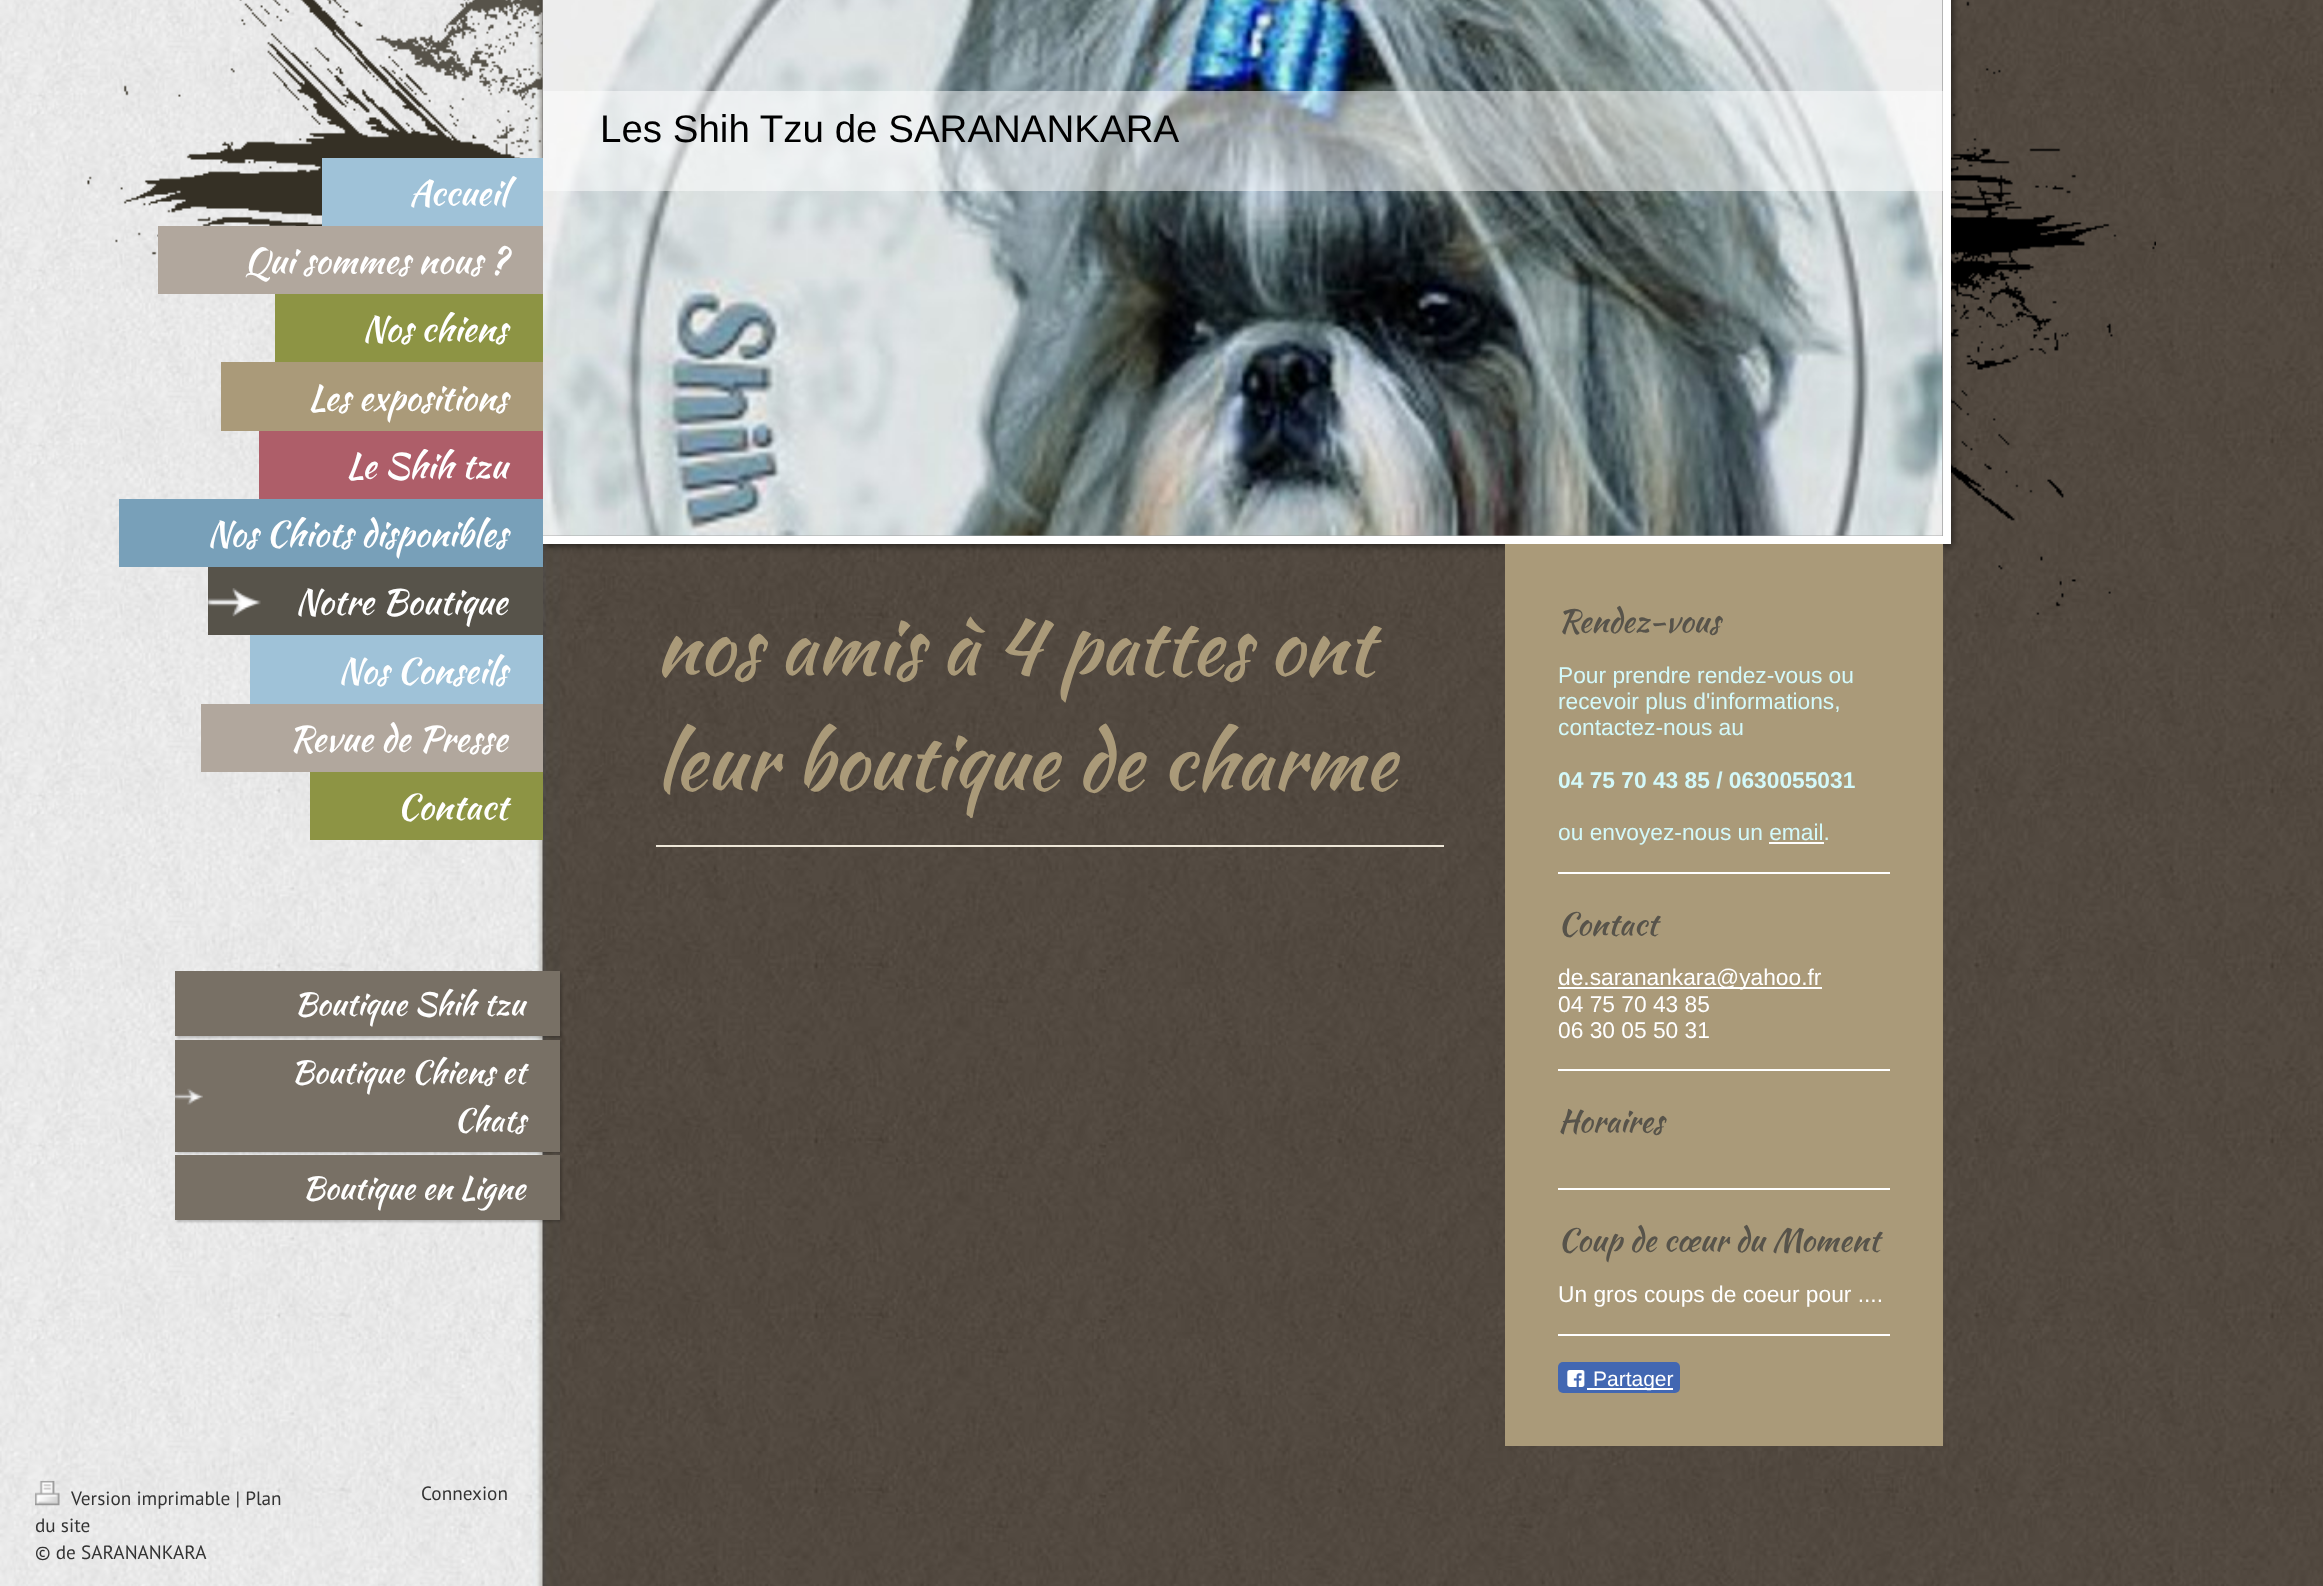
<!DOCTYPE html>
<meta charset="utf-8">
<style>body { margin: 0 } canvas { display: block }</style>
<canvas id="canvas" width="2323" height="1586"></canvas>
<img id="img1" src="images/1.png" hidden>
<img id="img2" src="images/2.png" hidden>
<img id="img3" src="images/5.png" hidden>
<img id="img4" src="images/3.png" hidden>
<img id="img5" src="images/4.png" hidden>
<img id="img6" src="images/6.png" hidden>
<img id="img7" src="images/7.png" hidden>
<script>
window.onload = function () {
    const canvas = document.getElementById('canvas');
    const context = canvas.getContext('2d');
    context.miterLimit = 4;
    context.fontKerning = 'normal';

    context.fillStyle = 'rgb(255, 255, 255)';
    context.fillRect(0, 0, 2323, 1586);
    context.drawImage(document.getElementById('img1'), 0, 0, 2323, 1586);
    context.drawImage(document.getElementById('img2'), 87, 0, 2069, 615);
    context.fillStyle = 'rgba(0, 0, 0, 0.5)';
    context.filter = 'blur(3.5px)';
    context.beginPath();
    context.rect(544, -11, 1409, 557);
    context.fill();
    context.filter = 'none';
    context.fillStyle = 'rgb(160, 160, 160)';
    context.fillRect(543, 0, 1400, 536);
    context.drawImage(document.getElementById('img3'), 542, 0, 1401, 536);
    context.fillStyle = 'rgb(159, 194, 216)';
    context.fillRect(322, 158, 221, 68);
    context.fillStyle = 'rgb(177, 167, 157)';
    context.fillRect(158, 226, 385, 68);
    context.fillStyle = 'rgb(141, 148, 68)';
    context.fillRect(275, 294, 268, 68);
    context.fillStyle = 'rgb(170, 154, 121)';
    context.fillRect(221, 362, 322, 69);
    context.fillStyle = 'rgb(174, 94, 105)';
    context.fillRect(259, 431, 284, 68);
    context.fillStyle = 'rgb(120, 160, 185)';
    context.fillRect(119, 499, 424, 68);
    context.fillStyle = 'rgb(87, 83, 74)';
    context.fillRect(208, 567, 335, 68);
    context.drawImage(document.getElementById('img4'), 208, 588, 53, 29);
    context.fillStyle = 'rgb(159, 194, 216)';
    context.fillRect(250, 635, 293, 69);
    context.fillStyle = 'rgb(177, 167, 157)';
    context.fillRect(201, 704, 342, 68);
    context.fillStyle = 'rgb(141, 148, 68)';
    context.fillRect(310, 772, 233, 68);
    context.fillStyle = 'rgba(0, 0, 0, 0.2)';
    context.filter = 'blur(1px)';
    context.beginPath();
    context.rect(177, 973, 385, 65);
    context.fill();
    context.filter = 'none';
    context.fillStyle = 'rgb(120, 112, 101)';
    context.fillRect(175, 971, 385, 65);
    context.fillStyle = 'rgba(0, 0, 0, 0.2)';
    context.filter = 'blur(1px)';
    context.beginPath();
    context.rect(177, 1041, 385, 112);
    context.fill();
    context.filter = 'none';
    context.fillStyle = 'rgb(120, 112, 101)';
    context.fillRect(175, 1040, 385, 112);
    context.drawImage(document.getElementById('img5'), 175, 1088, 28, 17);
    context.fillStyle = 'rgba(0, 0, 0, 0.2)';
    context.filter = 'blur(1px)';
    context.beginPath();
    context.rect(177, 1157, 385, 65);
    context.fill();
    context.filter = 'none';
    context.fillStyle = 'rgb(120, 112, 101)';
    context.fillRect(175, 1155, 385, 65);
    context.fillStyle = 'rgb(255, 255, 255)';
    context.fillRect(1943, 0, 8, 544);
    context.fillRect(543, 536, 1408, 8);
    context.fillStyle = 'rgba(255, 255, 255, 0.5)';
    context.fillRect(543, 91, 1400, 100);
    context.fillStyle = 'rgb(238, 231, 216)';
    context.fillRect(656, 845, 788, 2);
    context.fillStyle = 'rgb(170, 154, 121)';
    context.fillRect(1505, 544, 438, 902);
    context.fillStyle = 'rgb(255, 255, 255)';
    context.fillRect(1558, 872, 332, 2);
    context.fillRect(1558, 987, 264, 2);
    context.fillRect(1558, 1069, 332, 2);
    context.fillRect(1558, 1188, 332, 2);
    context.fillRect(1558, 1334, 332, 2);
    context.fillStyle = 'rgb(66, 103, 178)';
    context.beginPath();
    context.roundRect(1558, 1362, 122, 31, 5);
    context.fill();
    context.drawImage(document.getElementById('img6'), 1567, 1370, 18, 17);
    context.fillStyle = 'rgb(255, 255, 255)';
    context.fillRect(1587, 1388, 86, 2);
    context.drawImage(document.getElementById('img7'), 35, 1480, 25, 26);
    context.font = '35px Kaushan Script';
    context.fillText('Accueil', 409, 205);
    context.fillText('Qui sommes nous ?', 244, 273);
    context.fillText('Nos chiens', 362, 341);
    context.fillText('Les expositions', 308, 410);
    context.fillText('Le Shih tzu', 346, 478);
    context.fillText('Nos Chiots disponibles', 207, 546);
    context.fillText('Notre Boutique', 295, 614);
    context.fillText('Nos Conseils', 338, 683);
    context.fillText('Revue de Presse', 289, 751);
    context.fillText('Contact', 397, 819);
    context.font = '31.5px Kaushan Script';
    context.fillText('Boutique Shih tzu', 294, 1015);
    context.fillText('Boutique Chiens et', 291, 1083);
    context.fillText('Chats', 454, 1131);
    context.fillText('Boutique en Ligne', 302, 1199);
    context.font = '38.5px Liberation Sans';
    context.fillStyle = 'rgb(0, 0, 0)';
    context.fillText('Les Shih Tzu de SARANANKARA', 600, 142);
    context.font = '78.75px Kaushan Script';
    context.fillStyle = 'rgb(170, 154, 121)';
    context.fillText('nos amis à 4 pattes ont', 656, 674);
    context.fillText('leur boutique de charme', 656, 789);
    context.font = '31.5px Kaushan Script';
    context.fillStyle = 'rgb(87, 83, 74)';
    context.fillText('Rendez-vous', 1558, 632);
    context.font = '22.75px Liberation Sans';
    context.fillStyle = 'rgb(211, 249, 250)';
    context.fillText('Pour prendre rendez-vous ou', 1558, 683);
    context.fillText('recevoir plus d\'informations,', 1558, 709);
    context.fillText('contactez-nous au', 1558, 735);
    context.font = 'bold 22.75px Liberation Sans';
    context.fillText('04 75 70 43 85 / 0630055031', 1558, 788);
    context.font = '22.75px Liberation Sans';
    context.fillText('ou envoyez-nous un email.', 1558, 840);
    context.fillStyle = 'rgb(255, 255, 255)';
    context.fillRect(1769, 842, 55, 2);
    context.font = '31.5px Kaushan Script';
    context.fillStyle = 'rgb(87, 83, 74)';
    context.fillText('Contact', 1558, 935);
    context.font = '22.75px Liberation Sans';
    context.fillStyle = 'rgb(255, 255, 255)';
    context.fillText('de.saranankara@yahoo.fr', 1558, 985);
    context.fillText('04 75 70 43 85', 1558, 1012);
    context.fillText('06 30 05 50 31', 1558, 1038);
    context.font = '31.5px Kaushan Script';
    context.fillStyle = 'rgb(87, 83, 74)';
    context.fillText('Horaires', 1558, 1132);
    context.fillText('Coup de cœur du Moment', 1558, 1251);
    context.font = '22.75px Liberation Sans';
    context.fillStyle = 'rgb(255, 255, 255)';
    context.fillText('Un gros coups de coeur pour ....', 1558, 1302);
    context.font = '21px Liberation Sans';
    context.fillText('Partager', 1593, 1386);
    context.font = '19.25px PT Sans';
    context.fillStyle = 'rgb(51, 51, 51)';
    context.fillText('Version imprimable | Plan', 71, 1505);
    context.fillText('du site', 35, 1532);
    context.fillText('© de SARANANKARA', 35, 1559);
    context.fillText('Connexion', 421, 1500);
};
</script>
